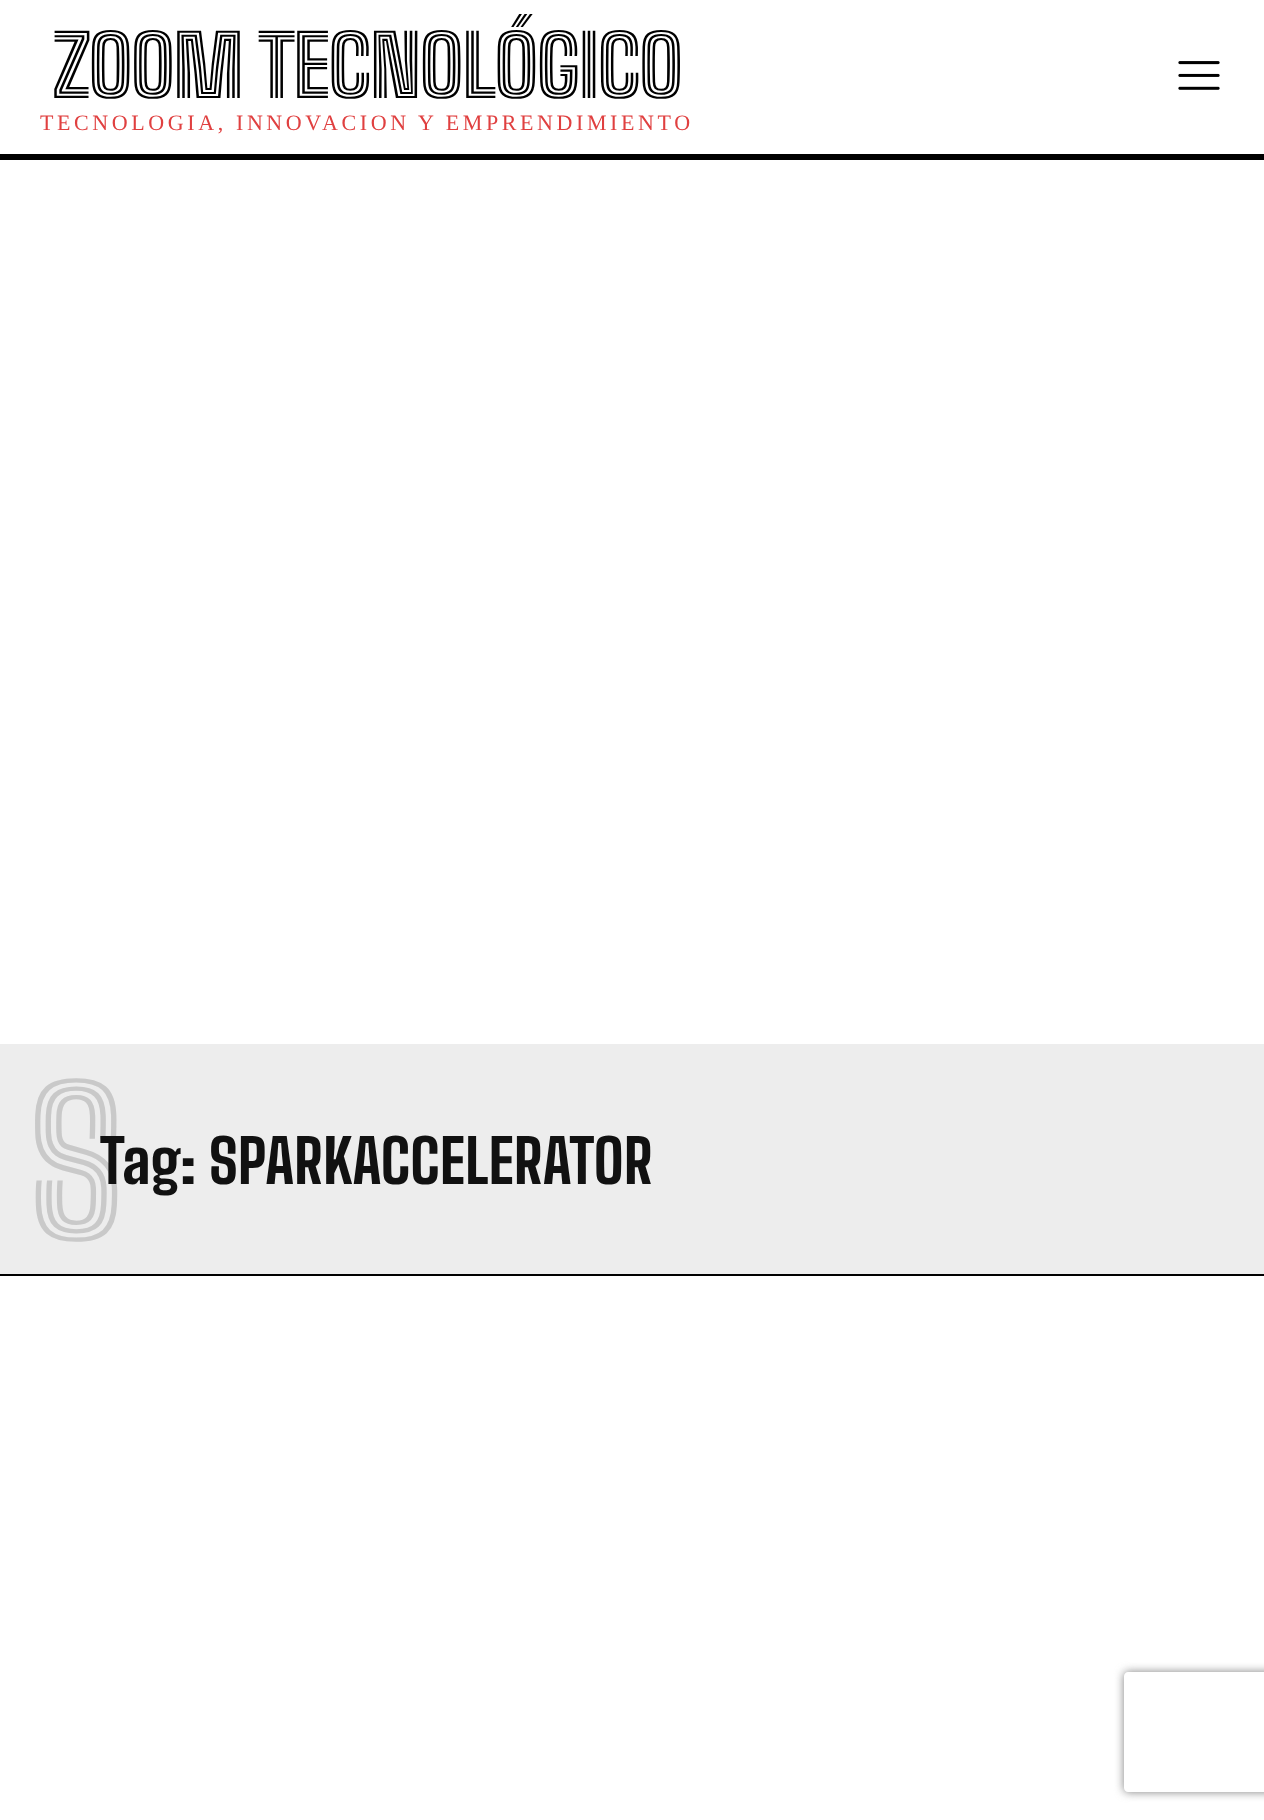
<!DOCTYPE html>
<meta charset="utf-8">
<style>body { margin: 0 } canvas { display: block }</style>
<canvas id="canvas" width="1264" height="1820"></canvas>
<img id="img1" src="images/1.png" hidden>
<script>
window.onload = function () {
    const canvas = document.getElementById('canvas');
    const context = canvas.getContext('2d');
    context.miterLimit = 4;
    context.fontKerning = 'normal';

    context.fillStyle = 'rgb(255, 255, 255)';
    context.fillRect(0, 0, 1264, 1820);
    context.fillStyle = 'rgb(0, 0, 0)';
    context.fillRect(0, 154, 1264, 6);
    context.drawImage(document.getElementById('img1'), 1178, 61, 42, 29);
    context.fillStyle = 'rgb(237, 237, 237)';
    context.fillRect(0, 1044, 1264, 230);
    context.fillStyle = 'rgb(0, 0, 0)';
    context.fillRect(0, 1274, 1264, 2);
    context.save();
    context.beginPath();
    context.moveTo(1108, 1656);
    context.lineTo(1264, 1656);
    context.lineTo(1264, 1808);
    context.lineTo(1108, 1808);
    context.closePath();
    context.moveTo(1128, 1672);
    context.lineTo(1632, 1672);
    context.bezierCurveTo(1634, 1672, 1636, 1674, 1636, 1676);
    context.lineTo(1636, 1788);
    context.bezierCurveTo(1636, 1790, 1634, 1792, 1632, 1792);
    context.lineTo(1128, 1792);
    context.bezierCurveTo(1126, 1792, 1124, 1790, 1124, 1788);
    context.lineTo(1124, 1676);
    context.bezierCurveTo(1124, 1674, 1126, 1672, 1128, 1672);
    context.closePath();
    context.clip('evenodd');
    context.fillStyle = 'rgb(128, 128, 128)';
    context.filter = 'blur(5px)';
    context.beginPath();
    context.roundRect(1124, 1672, 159, 120, 4);
    context.fill();
    context.filter = 'none';
    context.restore();
    context.letterSpacing = '-2px';
    context.font = '900 84px Big Shoulders Inline Text';
    context.fillText('ZOOM TECNOLÓGICO', 53, 98);
    context.letterSpacing = '3.6px';
    context.font = '22px Liberation Serif';
    context.fillStyle = 'rgb(224, 64, 64)';
    context.fillText('TECNOLOGIA, INNOVACION Y EMPRENDIMIENTO', 40, 130);
    context.letterSpacing = '0px';
    context.font = '800 200px Big Shoulders Inline Text';
    context.fillStyle = 'rgb(201, 201, 201)';
    context.fillText('S', 28, 1240);
    context.font = '800 60px Big Shoulders Text';
    context.fillStyle = 'rgb(17, 17, 17)';
    context.fillText('Tag: SPARKACCELERATOR', 100, 1184);
};
</script>
